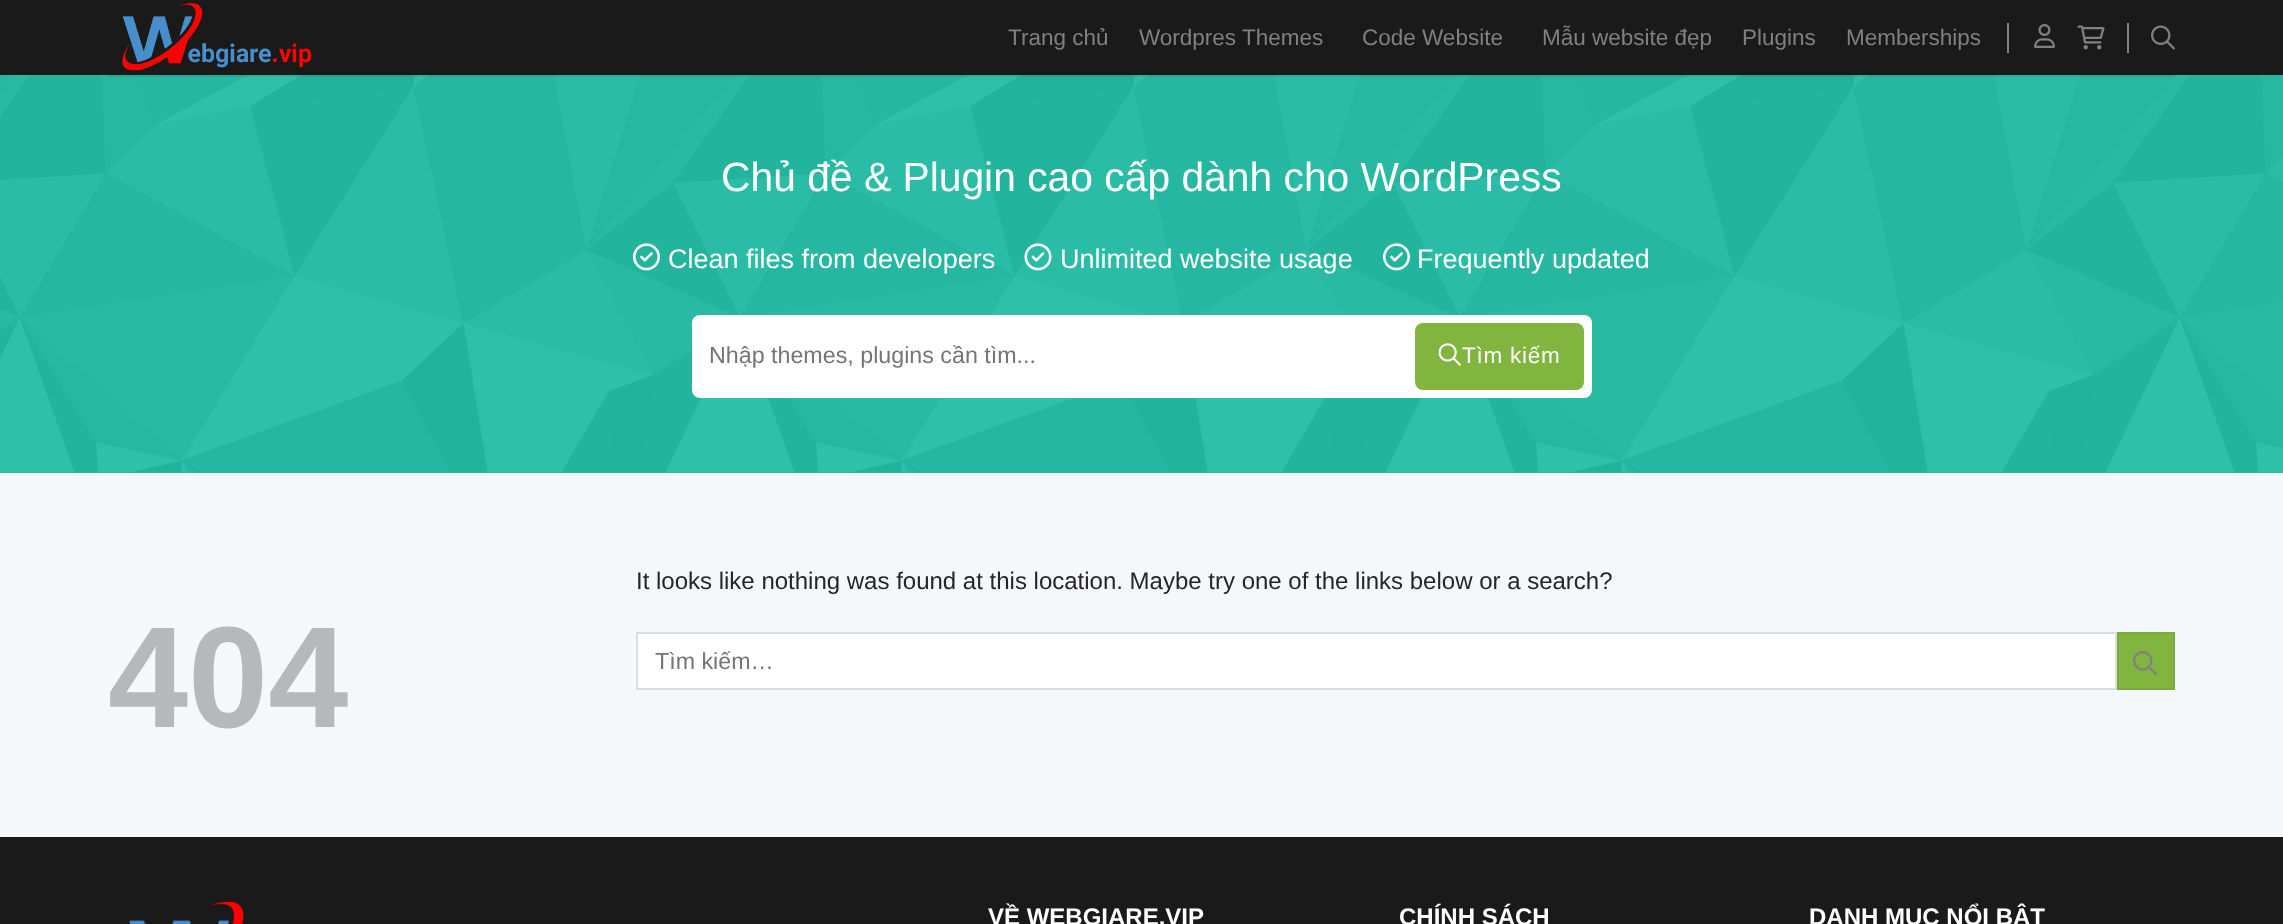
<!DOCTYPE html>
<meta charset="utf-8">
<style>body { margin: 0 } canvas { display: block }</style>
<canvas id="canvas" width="2283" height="924"></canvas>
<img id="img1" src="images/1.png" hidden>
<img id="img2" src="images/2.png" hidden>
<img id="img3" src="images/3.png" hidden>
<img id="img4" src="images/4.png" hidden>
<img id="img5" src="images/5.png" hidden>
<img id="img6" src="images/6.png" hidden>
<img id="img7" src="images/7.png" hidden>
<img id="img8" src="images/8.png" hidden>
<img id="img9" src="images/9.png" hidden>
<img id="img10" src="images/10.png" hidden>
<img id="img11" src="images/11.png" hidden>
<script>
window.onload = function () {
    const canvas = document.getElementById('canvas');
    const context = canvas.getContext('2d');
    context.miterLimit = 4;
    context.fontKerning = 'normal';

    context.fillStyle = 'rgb(244, 248, 250)';
    context.fillRect(0, 0, 2283, 924);
    context.fillStyle = 'rgb(26, 26, 26)';
    context.fillRect(0, 0, 2283, 75);
    context.drawImage(document.getElementById('img1'), 122, 3, 190, 68);
    context.fillStyle = 'rgb(128, 128, 128)';
    context.fillRect(2007, 23, 2, 30);
    context.drawImage(document.getElementById('img2'), 2034, 24, 21, 24);
    context.drawImage(document.getElementById('img3'), 2077, 25, 28, 25);
    context.fillRect(2127, 23, 2, 30);
    context.drawImage(document.getElementById('img4'), 2151, 25, 24, 25);
    context.fillStyle = 'rgb(31, 189, 165)';
    context.fillRect(0, 75, 2283, 398);
    context.drawImage(document.getElementById('img5'), 0, 75, 2283, 398);
    context.fillStyle = 'rgba(38, 38, 38, 0.1)';
    context.fillRect(108, 75, 2067, 2);
    context.drawImage(document.getElementById('img6'), 633, 243, 27, 28);
    context.drawImage(document.getElementById('img7'), 1024, 243, 28, 28);
    context.drawImage(document.getElementById('img8'), 1383, 243, 27, 28);
    context.fillStyle = 'rgb(255, 255, 255)';
    context.beginPath();
    context.roundRect(692, 315, 900, 83, 8);
    context.fill();
    context.fillStyle = 'rgb(130, 180, 64)';
    context.beginPath();
    context.roundRect(1415, 323, 169, 67, 8);
    context.fill();
    context.drawImage(document.getElementById('img9'), 1438, 343, 23, 23);
    context.fillStyle = 'rgb(255, 255, 255)';
    context.beginPath();
    context.rect(637, 633, 1479, 56);
    context.fill();
    context.strokeStyle = 'rgb(221, 221, 221)';
    context.lineWidth = 2;
    context.stroke();
    context.fillStyle = 'rgb(130, 180, 64)';
    context.beginPath();
    context.rect(2118, 633, 56, 56);
    context.fill();
    context.strokeStyle = 'rgb(124, 171, 61)';
    context.stroke();
    context.drawImage(document.getElementById('img10'), 2133, 651, 24, 24);
    context.fillStyle = 'rgb(26, 26, 26)';
    context.fillRect(0, 837, 2283, 87);
    context.drawImage(document.getElementById('img11'), 129, 901, 115, 23);
    context.font = '22.5px Liberation Sans';
    context.fillStyle = 'rgb(128, 128, 128)';
    context.fillText('Trang chủ', 1008, 45);
    context.fillText('Wordpres Themes', 1139, 45);
    context.fillText('Code Website', 1362, 45);
    context.fillText('Mẫu website đẹp', 1542, 45);
    context.fillText('Plugins', 1742, 45);
    context.fillText('Memberships', 1846, 45);
    context.font = '40.8px Liberation Sans';
    context.fillStyle = 'rgb(255, 255, 255)';
    context.fillText('Chủ đề & Plugin cao cấp dành cho WordPress', 721, 191);
    context.font = '27px Liberation Sans';
    context.fillText('Clean files from developers', 668, 268);
    context.fillText('Unlimited website usage', 1060, 268);
    context.fillText('Frequently updated', 1417, 268);
    context.font = '23.25px Liberation Sans';
    context.fillStyle = 'rgb(117, 117, 117)';
    context.fillText('Nhập themes, plugins cần tìm...', 709, 363);
    context.letterSpacing = '0.75px';
    context.font = '22.5px Liberation Sans';
    context.fillStyle = 'rgb(255, 255, 255)';
    context.fillText('Tìm kiếm', 1462, 363);
    context.letterSpacing = '0px';
    context.font = 'bold 144px Liberation Sans';
    context.fillStyle = 'rgb(182, 185, 186)';
    context.fillText('404', 108, 727);
    context.font = '24px Liberation Sans';
    context.fillStyle = 'rgb(38, 38, 38)';
    context.fillText('It looks like nothing was found at this location. Maybe try one of the links below or a search?', 636, 589);
    context.font = '23.25px Liberation Sans';
    context.fillStyle = 'rgb(117, 117, 117)';
    context.fillText('Tìm kiếm…', 655, 669);
    context.font = 'bold 24px Liberation Sans';
    context.fillStyle = 'rgb(255, 255, 255)';
    context.fillText('VỀ WEBGIARE.VIP', 988, 925);
    context.fillText('CHÍNH SÁCH', 1399, 925);
    context.fillText('DANH MỤC NỔI BẬT', 1809, 925);
};
</script>
